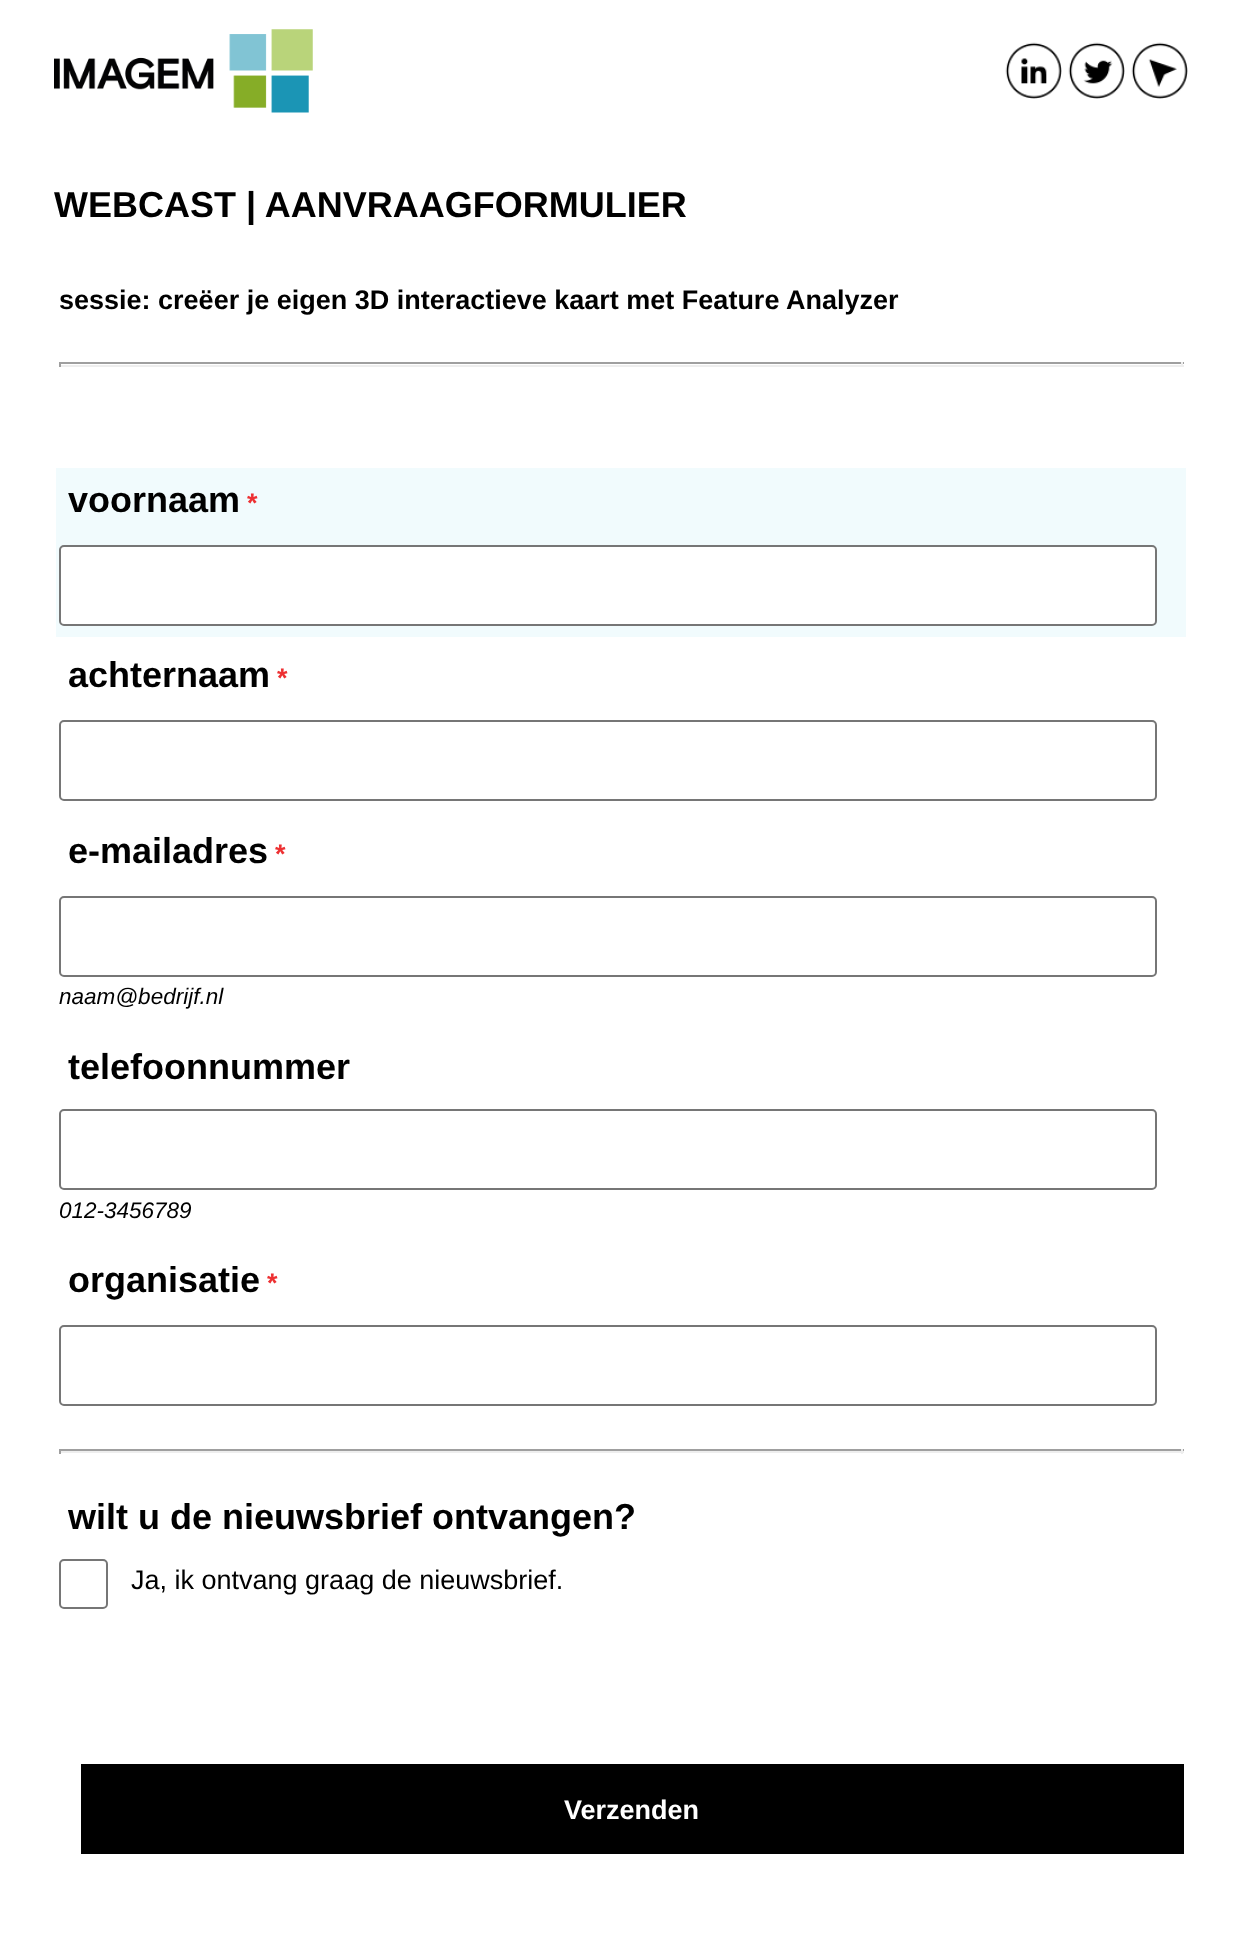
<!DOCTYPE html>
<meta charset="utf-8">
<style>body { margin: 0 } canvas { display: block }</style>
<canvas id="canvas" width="1241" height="1946"></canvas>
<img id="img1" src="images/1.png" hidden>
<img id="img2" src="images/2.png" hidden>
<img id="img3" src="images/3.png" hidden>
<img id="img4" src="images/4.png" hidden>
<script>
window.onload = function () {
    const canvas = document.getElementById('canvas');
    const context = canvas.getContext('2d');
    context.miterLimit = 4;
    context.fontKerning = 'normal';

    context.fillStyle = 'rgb(255, 255, 255)';
    context.fillRect(0, 0, 1241, 1946);
    context.drawImage(document.getElementById('img1'), 54, 29, 259, 84);
    context.drawImage(document.getElementById('img2'), 1005, 42, 57, 57);
    context.drawImage(document.getElementById('img3'), 1068, 42, 57, 57);
    context.drawImage(document.getElementById('img4'), 1131, 42, 57, 57);
    context.fillStyle = 'rgb(159, 159, 159)';
    context.fillRect(59, 362, 1125, 2);
    context.fillStyle = 'rgb(238, 238, 238)';
    context.fillRect(1181, 362, 2, 5);
    context.fillRect(59, 365, 1125, 2);
    context.fillStyle = 'rgb(159, 159, 159)';
    context.fillRect(59, 362, 2, 5);
    context.fillStyle = 'rgb(241, 251, 253)';
    context.fillRect(56, 468, 1130, 169);
    context.fillStyle = 'rgb(255, 255, 255)';
    context.beginPath();
    context.roundRect(60, 546, 1096, 79, 4);
    context.fill();
    context.strokeStyle = 'rgb(118, 118, 118)';
    context.lineWidth = 2;
    context.stroke();
    context.beginPath();
    context.roundRect(60, 721, 1096, 79, 4);
    context.stroke();
    context.beginPath();
    context.roundRect(60, 897, 1096, 79, 4);
    context.stroke();
    context.beginPath();
    context.roundRect(60, 1110, 1096, 79, 4);
    context.stroke();
    context.beginPath();
    context.roundRect(60, 1326, 1096, 79, 4);
    context.stroke();
    context.fillStyle = 'rgb(159, 159, 159)';
    context.fillRect(59, 1449, 1125, 2);
    context.fillStyle = 'rgb(238, 238, 238)';
    context.fillRect(1181, 1449, 2, 5);
    context.fillRect(59, 1451, 1125, 2);
    context.fillStyle = 'rgb(159, 159, 159)';
    context.fillRect(59, 1449, 2, 5);
    context.beginPath();
    context.roundRect(60, 1560, 47, 48, 4);
    context.stroke();
    context.fillStyle = 'rgb(0, 0, 0)';
    context.fillRect(81, 1764, 1103, 90);
    context.font = 'bold 36px Liberation Sans';
    context.fillText('WEBCAST | AANVRAAGFORMULIER', 54, 217);
    context.font = 'bold 27px Liberation Sans';
    context.fillText('sessie: creëer je eigen 3D interactieve kaart met Feature Analyzer', 59, 309);
    context.font = 'bold 36px Liberation Sans';
    context.fillText('voornaam', 68, 512);
    context.font = 'bold 27px Liberation Sans';
    context.fillStyle = 'rgb(237, 48, 50)';
    context.fillText('*', 247, 512);
    context.font = 'bold 36px Liberation Sans';
    context.fillStyle = 'rgb(0, 0, 0)';
    context.fillText('achternaam', 68, 687);
    context.font = 'bold 27px Liberation Sans';
    context.fillStyle = 'rgb(237, 48, 50)';
    context.fillText('*', 277, 687);
    context.font = 'bold 36px Liberation Sans';
    context.fillStyle = 'rgb(0, 0, 0)';
    context.fillText('e-mailadres', 68, 863);
    context.font = 'bold 27px Liberation Sans';
    context.fillStyle = 'rgb(237, 48, 50)';
    context.fillText('*', 275, 863);
    context.font = 'italic 22.5px Liberation Sans';
    context.fillStyle = 'rgb(0, 0, 0)';
    context.fillText('naam@bedrijf.nl', 59, 1004);
    context.font = 'bold 36px Liberation Sans';
    context.fillText('telefoonnummer', 68, 1079);
    context.font = 'italic 22.5px Liberation Sans';
    context.fillText('012-3456789', 59, 1218);
    context.font = 'bold 36px Liberation Sans';
    context.fillText('organisatie', 68, 1292);
    context.font = 'bold 27px Liberation Sans';
    context.fillStyle = 'rgb(237, 48, 50)';
    context.fillText('*', 267, 1292);
    context.font = 'bold 36px Liberation Sans';
    context.fillStyle = 'rgb(0, 0, 0)';
    context.fillText('wilt u de nieuwsbrief ontvangen?', 68, 1529);
    context.font = '27px Liberation Sans';
    context.fillText('Ja, ik ontvang graag de nieuwsbrief.', 131, 1589);
    context.font = 'bold 27px Liberation Sans';
    context.fillStyle = 'rgb(255, 255, 255)';
    context.fillText('Verzenden', 564, 1819);
};
</script>
